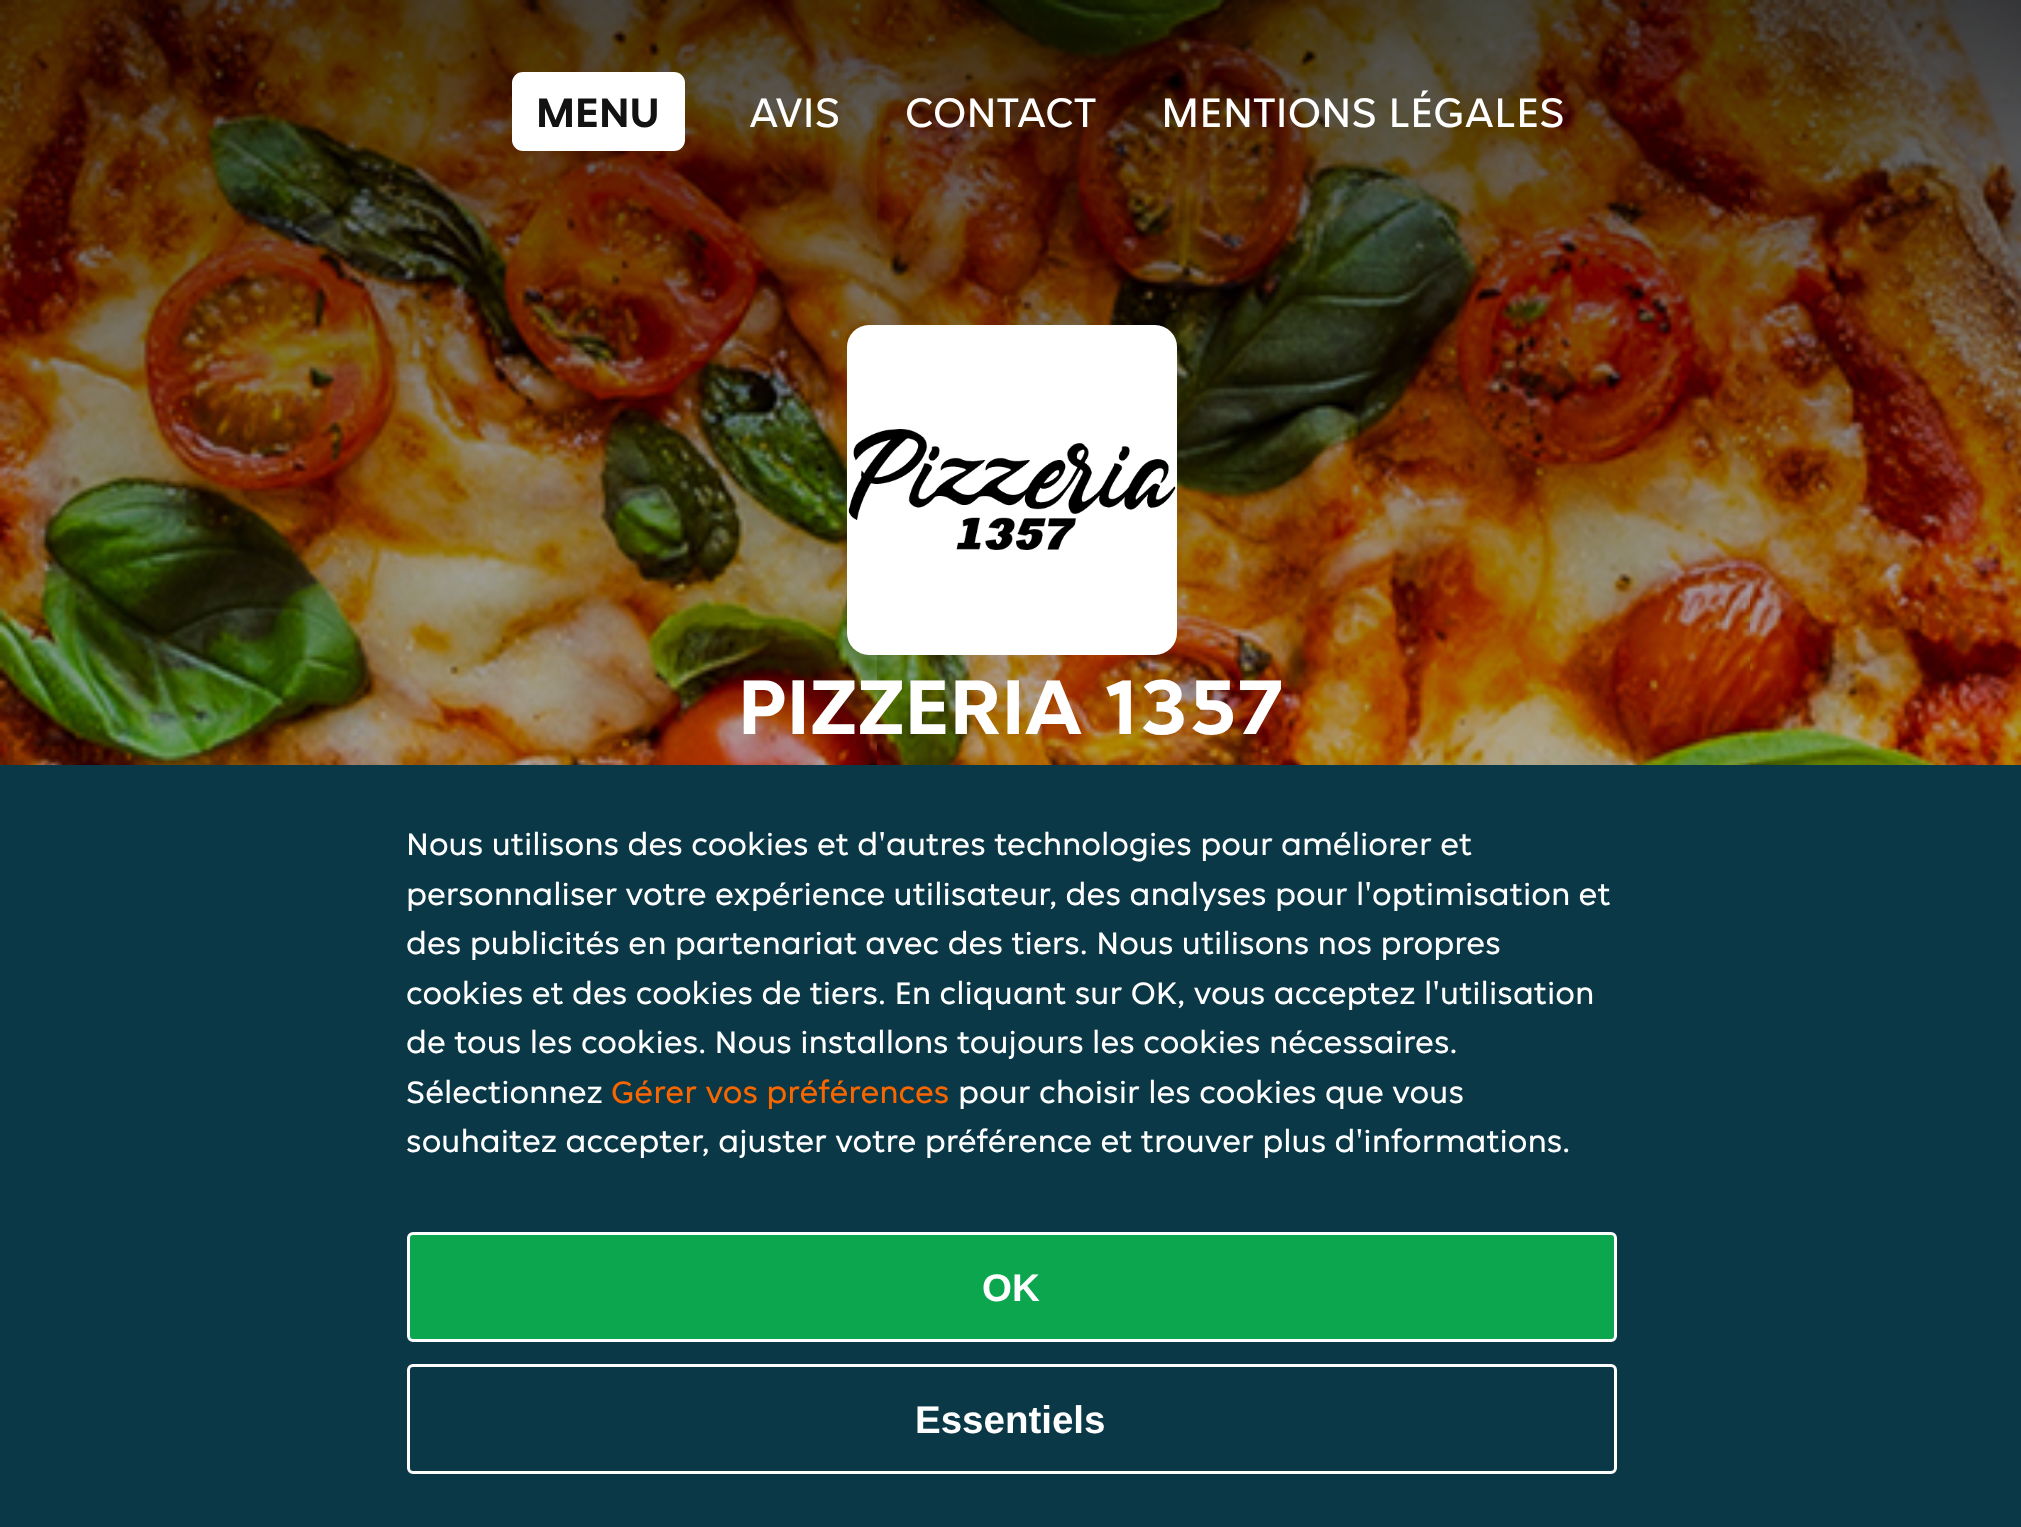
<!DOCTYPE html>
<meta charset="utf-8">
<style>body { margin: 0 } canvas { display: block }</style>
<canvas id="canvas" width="2021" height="1527"></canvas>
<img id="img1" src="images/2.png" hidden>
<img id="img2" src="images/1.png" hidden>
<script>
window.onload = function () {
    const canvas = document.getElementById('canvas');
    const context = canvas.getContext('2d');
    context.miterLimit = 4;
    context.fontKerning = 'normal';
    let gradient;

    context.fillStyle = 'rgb(255, 255, 255)';
    context.fillRect(0, 0, 2021, 1527);
    context.drawImage(document.getElementById('img1'), 0, 0, 2021, 765);
    gradient = context.createLinearGradient(1011, 0, 1011, 1375);
    gradient.addColorStop(0, 'rgba(0, 0, 0, 0.7)');
    gradient.addColorStop(0.33, 'rgba(0, 0, 0, 0.4)');
    gradient.addColorStop(0.67, 'rgba(0, 0, 0, 0.2)');
    gradient.addColorStop(1, 'rgba(0, 0, 0, 0)');
    context.fillStyle = gradient;
    context.fillRect(0, 0, 2021, 765);
    context.fillStyle = 'rgb(255, 255, 255)';
    context.beginPath();
    context.roundRect(512, 72, 173, 79, 11);
    context.fill();
    context.beginPath();
    context.roundRect(847, 325, 330, 330, 22);
    context.fill();
    context.drawImage(document.getElementById('img2'), 848, 429, 328, 121);
    context.fillStyle = 'rgb(10, 56, 71)';
    context.fillRect(0, 765, 2021, 762);
    context.fillStyle = 'rgb(12, 166, 79)';
    context.beginPath();
    context.roundRect(408.5, 1233.5, 1207, 107, 4.5);
    context.fill();
    context.strokeStyle = 'rgb(255, 255, 255)';
    context.lineWidth = 3;
    context.stroke();
    context.beginPath();
    context.roundRect(408.5, 1365.5, 1207, 107, 4.5);
    context.stroke();
    context.font = 'bold 44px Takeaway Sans';
    context.fillStyle = 'rgb(18, 18, 18)';
    context.fillText('MENU', 536, 127);
    context.font = '44px Takeaway Sans';
    context.fillStyle = 'rgb(255, 255, 255)';
    context.fillText('AVIS', 749, 127);
    context.fillText('CONTACT', 905, 127);
    context.fillText('MENTIONS LÉGALES', 1161, 127);
    context.font = 'bold 82.5px Takeaway Sans';
    context.fillText('PIZZERIA 1357', 738, 734);
    context.font = '33px Takeaway Sans';
    context.fillText('Nous utilisons des cookies et d\'autres technologies pour améliorer et', 406, 855);
    context.fillText('personnaliser votre expérience utilisateur, des analyses pour l\'optimisation et', 406, 905);
    context.fillText('des publicités en partenariat avec des tiers. Nous utilisons nos propres', 406, 954);
    context.fillText('cookies et des cookies de tiers. En cliquant sur OK, vous acceptez l\'utilisation', 406, 1004);
    context.fillText('de tous les cookies. Nous installons toujours les cookies nécessaires.', 406, 1053);
    context.fillText('Sélectionnez', 406, 1103);
    context.fillStyle = 'rgb(248, 102, 0)';
    context.fillText('Gérer vos préférences', 611, 1103);
    context.fillStyle = 'rgb(255, 255, 255)';
    context.fillText('pour choisir les cookies que vous', 958, 1103);
    context.fillText('souhaitez accepter, ajuster votre préférence et trouver plus d\'informations.', 406, 1152);
    context.font = 'bold 38.5px Liberation Sans';
    context.fillText('OK', 982, 1301);
    context.fillText('Essentiels', 915, 1433);
};
</script>
